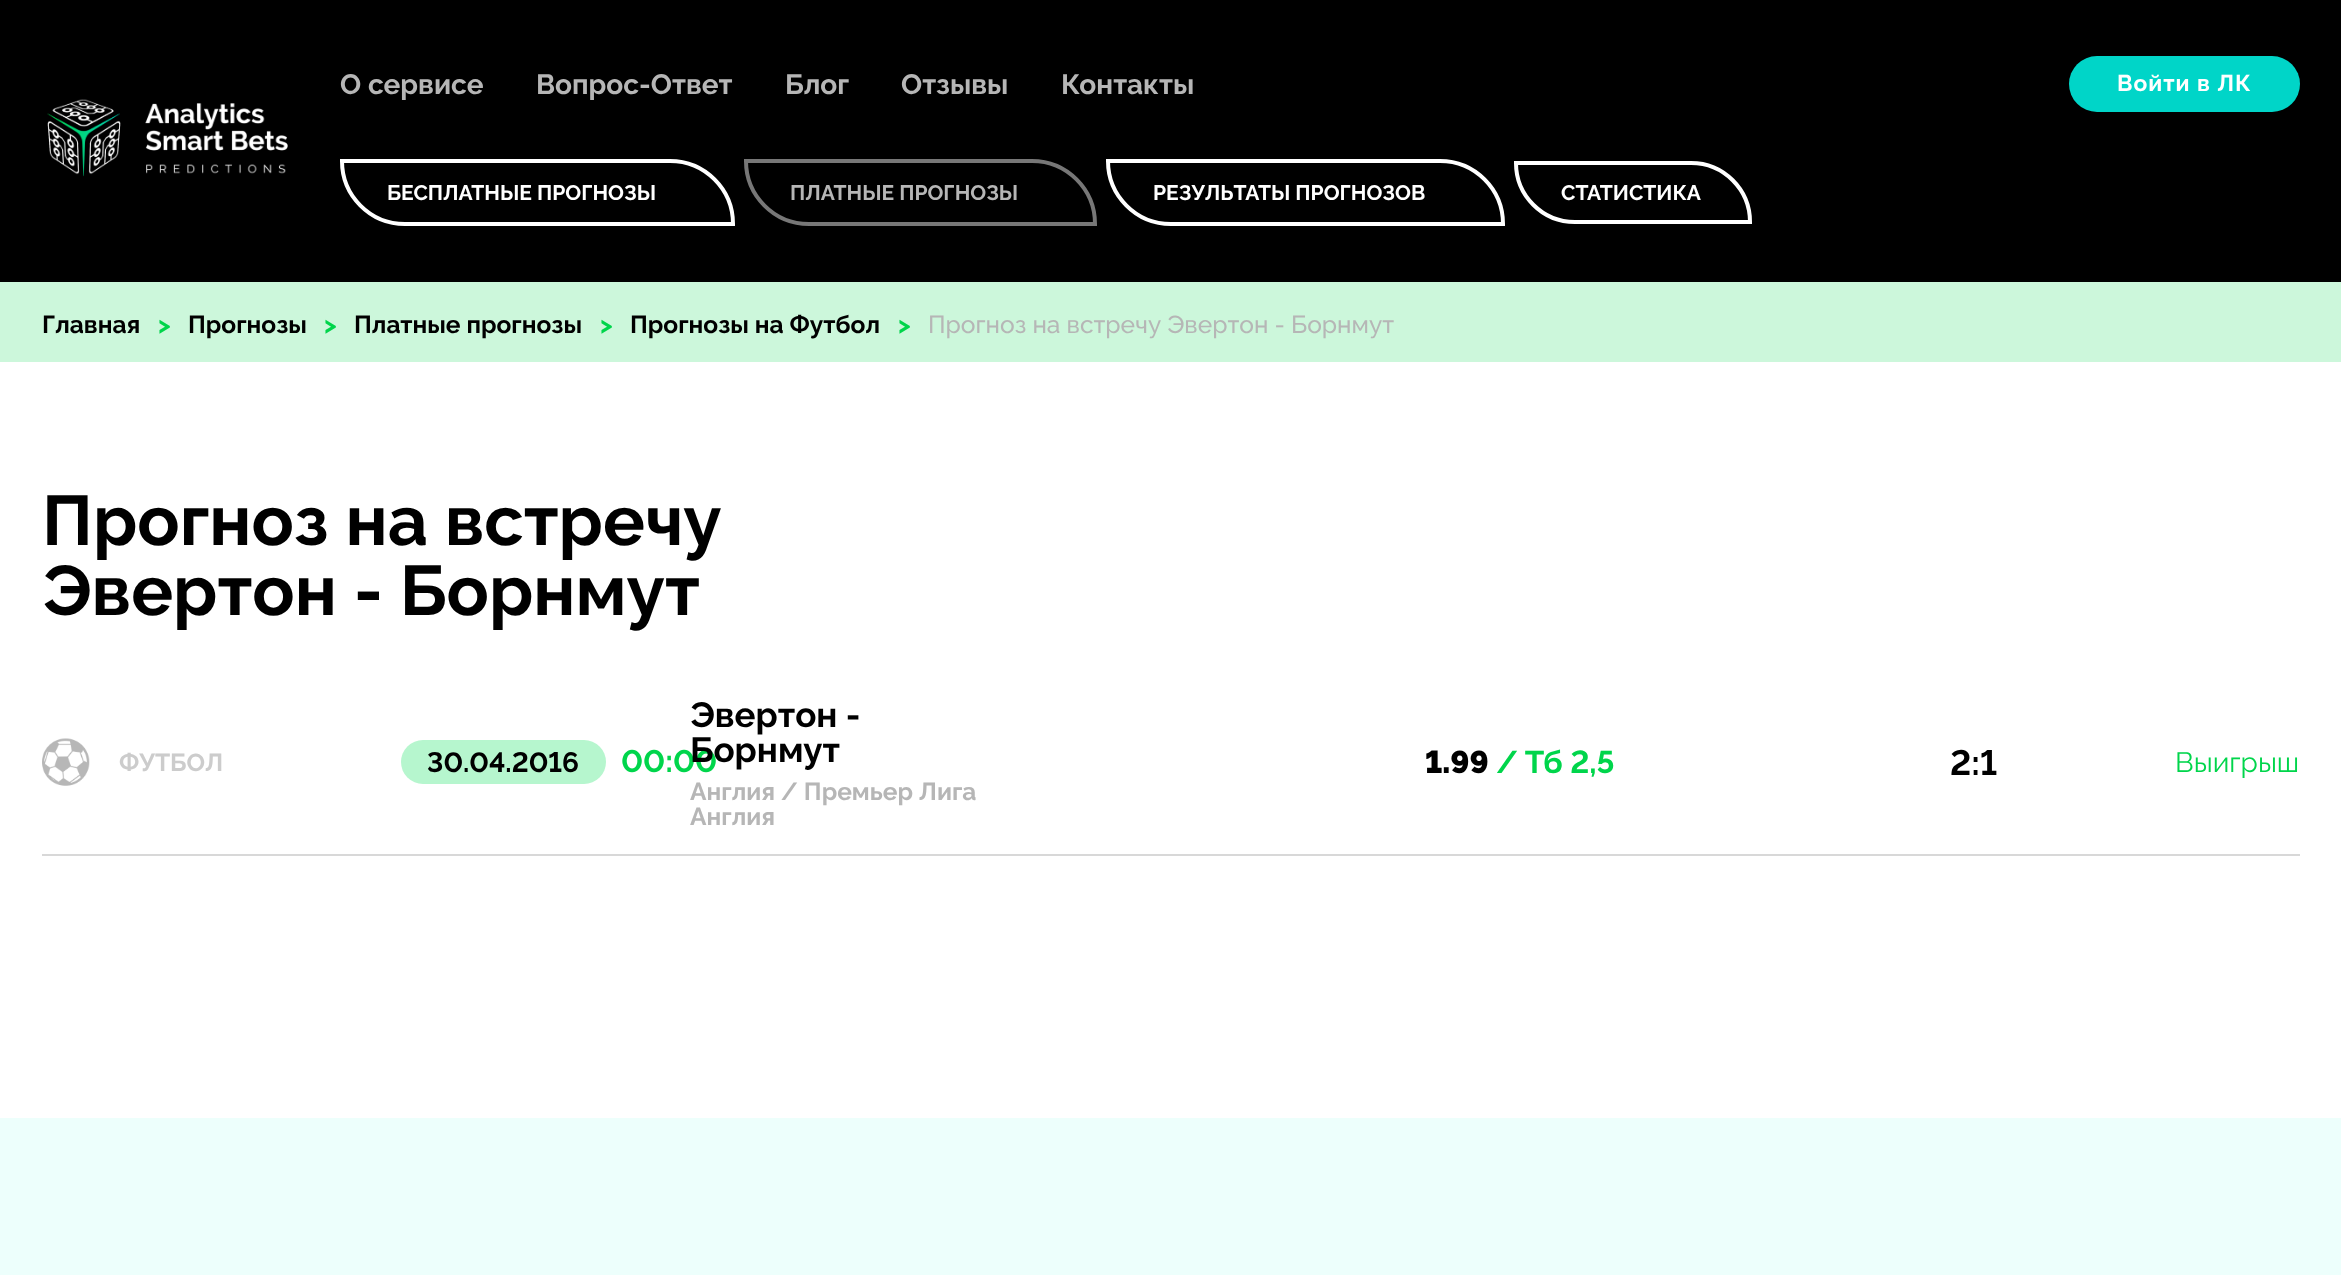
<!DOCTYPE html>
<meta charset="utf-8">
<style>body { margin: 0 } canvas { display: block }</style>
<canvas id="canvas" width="2341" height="1275"></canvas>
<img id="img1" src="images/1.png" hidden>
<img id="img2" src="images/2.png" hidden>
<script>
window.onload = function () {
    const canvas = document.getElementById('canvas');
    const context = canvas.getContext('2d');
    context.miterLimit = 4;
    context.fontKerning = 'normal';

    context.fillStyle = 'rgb(255, 255, 255)';
    context.fillRect(0, 0, 2341, 1275);
    context.fillStyle = 'rgb(0, 0, 0)';
    context.fillRect(0, 0, 2341, 282);
    context.drawImage(document.getElementById('img1'), 47, 99, 241, 78);
    context.fillStyle = 'rgb(0, 213, 200)';
    context.beginPath();
    context.roundRect(2069, 56, 231, 56, 28);
    context.fill();
    context.beginPath();
    context.roundRect(342, 161, 391, 63, [0, 65, 0, 65]);
    context.strokeStyle = 'rgb(255, 255, 255)';
    context.lineWidth = 4;
    context.stroke();
    context.beginPath();
    context.roundRect(746, 161, 349, 63, [0, 65, 0, 65]);
    context.strokeStyle = 'rgb(119, 119, 119)';
    context.stroke();
    context.beginPath();
    context.roundRect(1108, 161, 395, 63, [0, 65, 0, 65]);
    context.strokeStyle = 'rgb(255, 255, 255)';
    context.stroke();
    context.beginPath();
    context.roundRect(1516, 163, 234, 59, [0, 61, 0, 61]);
    context.stroke();
    context.fillStyle = 'rgb(204, 247, 219)';
    context.fillRect(0, 282, 2341, 80);
    context.fillStyle = 'rgb(216, 216, 216)';
    context.fillRect(42, 854, 2258, 2);
    context.drawImage(document.getElementById('img2'), 42, 738, 48, 48);
    context.fillStyle = 'rgb(182, 246, 206)';
    context.beginPath();
    context.roundRect(401, 740, 205, 44, 22);
    context.fill();
    context.fillStyle = 'rgb(237, 255, 252)';
    context.fillRect(0, 1118, 2341, 157);
    context.font = 'bold 28px Raleway';
    context.fillStyle = 'rgb(182, 182, 182)';
    context.fillText('О сервисе', 340, 94);
    context.fillText('Вопрос-Ответ', 536, 94);
    context.fillText('Блог', 785, 94);
    context.fillText('Отзывы', 901, 94);
    context.fillText('Контакты', 1061, 94);
    context.letterSpacing = '1px';
    context.font = 'bold 22.75px Raleway';
    context.fillStyle = 'rgb(255, 255, 255)';
    context.fillText('Войти в ЛК', 2117, 91);
    context.letterSpacing = '0px';
    context.font = 'bold 21px Raleway';
    context.fillText('БЕСПЛАТНЫЕ ПРОГНОЗЫ', 387, 200);
    context.fillStyle = 'rgb(182, 182, 182)';
    context.fillText('ПЛАТНЫЕ ПРОГНОЗЫ', 790, 200);
    context.fillStyle = 'rgb(255, 255, 255)';
    context.fillText('РЕЗУЛЬТАТЫ ПРОГНОЗОВ', 1153, 200);
    context.fillText('СТАТИСТИКА', 1561, 200);
    context.font = 'bold 24.5px Raleway';
    context.fillStyle = 'rgb(0, 0, 0)';
    context.fillText('Главная', 42, 333);
    context.fillStyle = 'rgb(0, 213, 75)';
    context.fillText('>', 158, 333);
    context.fillStyle = 'rgb(0, 0, 0)';
    context.fillText('Прогнозы', 188, 333);
    context.fillStyle = 'rgb(0, 213, 75)';
    context.fillText('>', 324, 333);
    context.fillStyle = 'rgb(0, 0, 0)';
    context.fillText('Платные прогнозы', 354, 333);
    context.fillStyle = 'rgb(0, 213, 75)';
    context.fillText('>', 600, 333);
    context.fillStyle = 'rgb(0, 0, 0)';
    context.fillText('Прогнозы на Футбол', 630, 333);
    context.fillStyle = 'rgb(0, 213, 75)';
    context.fillText('>', 898, 333);
    context.font = '500 24.5px Raleway';
    context.fillStyle = 'rgb(182, 182, 182)';
    context.fillText('Прогноз на встречу Эвертон - Борнмут', 928, 333);
    context.font = 'bold 70px Raleway';
    context.fillStyle = 'rgb(0, 0, 0)';
    context.fillText('Прогноз на встречу', 42, 545);
    context.fillText('Эвертон - Борнмут', 42, 615);
    context.font = 'bold 24.5px Raleway';
    context.fillStyle = 'rgb(204, 204, 204)';
    context.fillText('ФУТБОЛ', 119, 771);
    context.font = 'bold 28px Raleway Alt';
    context.fillStyle = 'rgb(0, 0, 0)';
    context.fillText('30.04.2016', 427, 772);
    context.font = 'bold 31.5px Raleway Alt';
    context.fillStyle = 'rgb(0, 213, 75)';
    context.fillText('00:00', 621, 772);
    context.font = 'bold 35px Raleway';
    context.fillStyle = 'rgb(0, 0, 0)';
    context.fillText('Эвертон -', 690, 727);
    context.fillText('Борнмут', 690, 762);
    context.font = 'bold 24.5px Raleway';
    context.fillStyle = 'rgb(182, 182, 182)';
    context.fillText('Англия / Премьер Лига', 690, 800);
    context.fillText('Англия', 690, 825);
    context.font = '900 31.5px Raleway Alt';
    context.fillStyle = 'rgb(0, 0, 0)';
    context.fillText('1.99', 1425, 773);
    context.font = 'bold 31.5px Raleway Alt';
    context.fillStyle = 'rgb(0, 213, 75)';
    context.fillText('/ Тб 2,5', 1496, 773);
    context.font = 'bold 35px Raleway Alt';
    context.fillStyle = 'rgb(0, 0, 0)';
    context.fillText('2:1', 1950, 775);
    context.font = '28px Raleway';
    context.fillStyle = 'rgb(0, 213, 75)';
    context.fillText('Выигрыш', 2175, 772);
};
</script>
